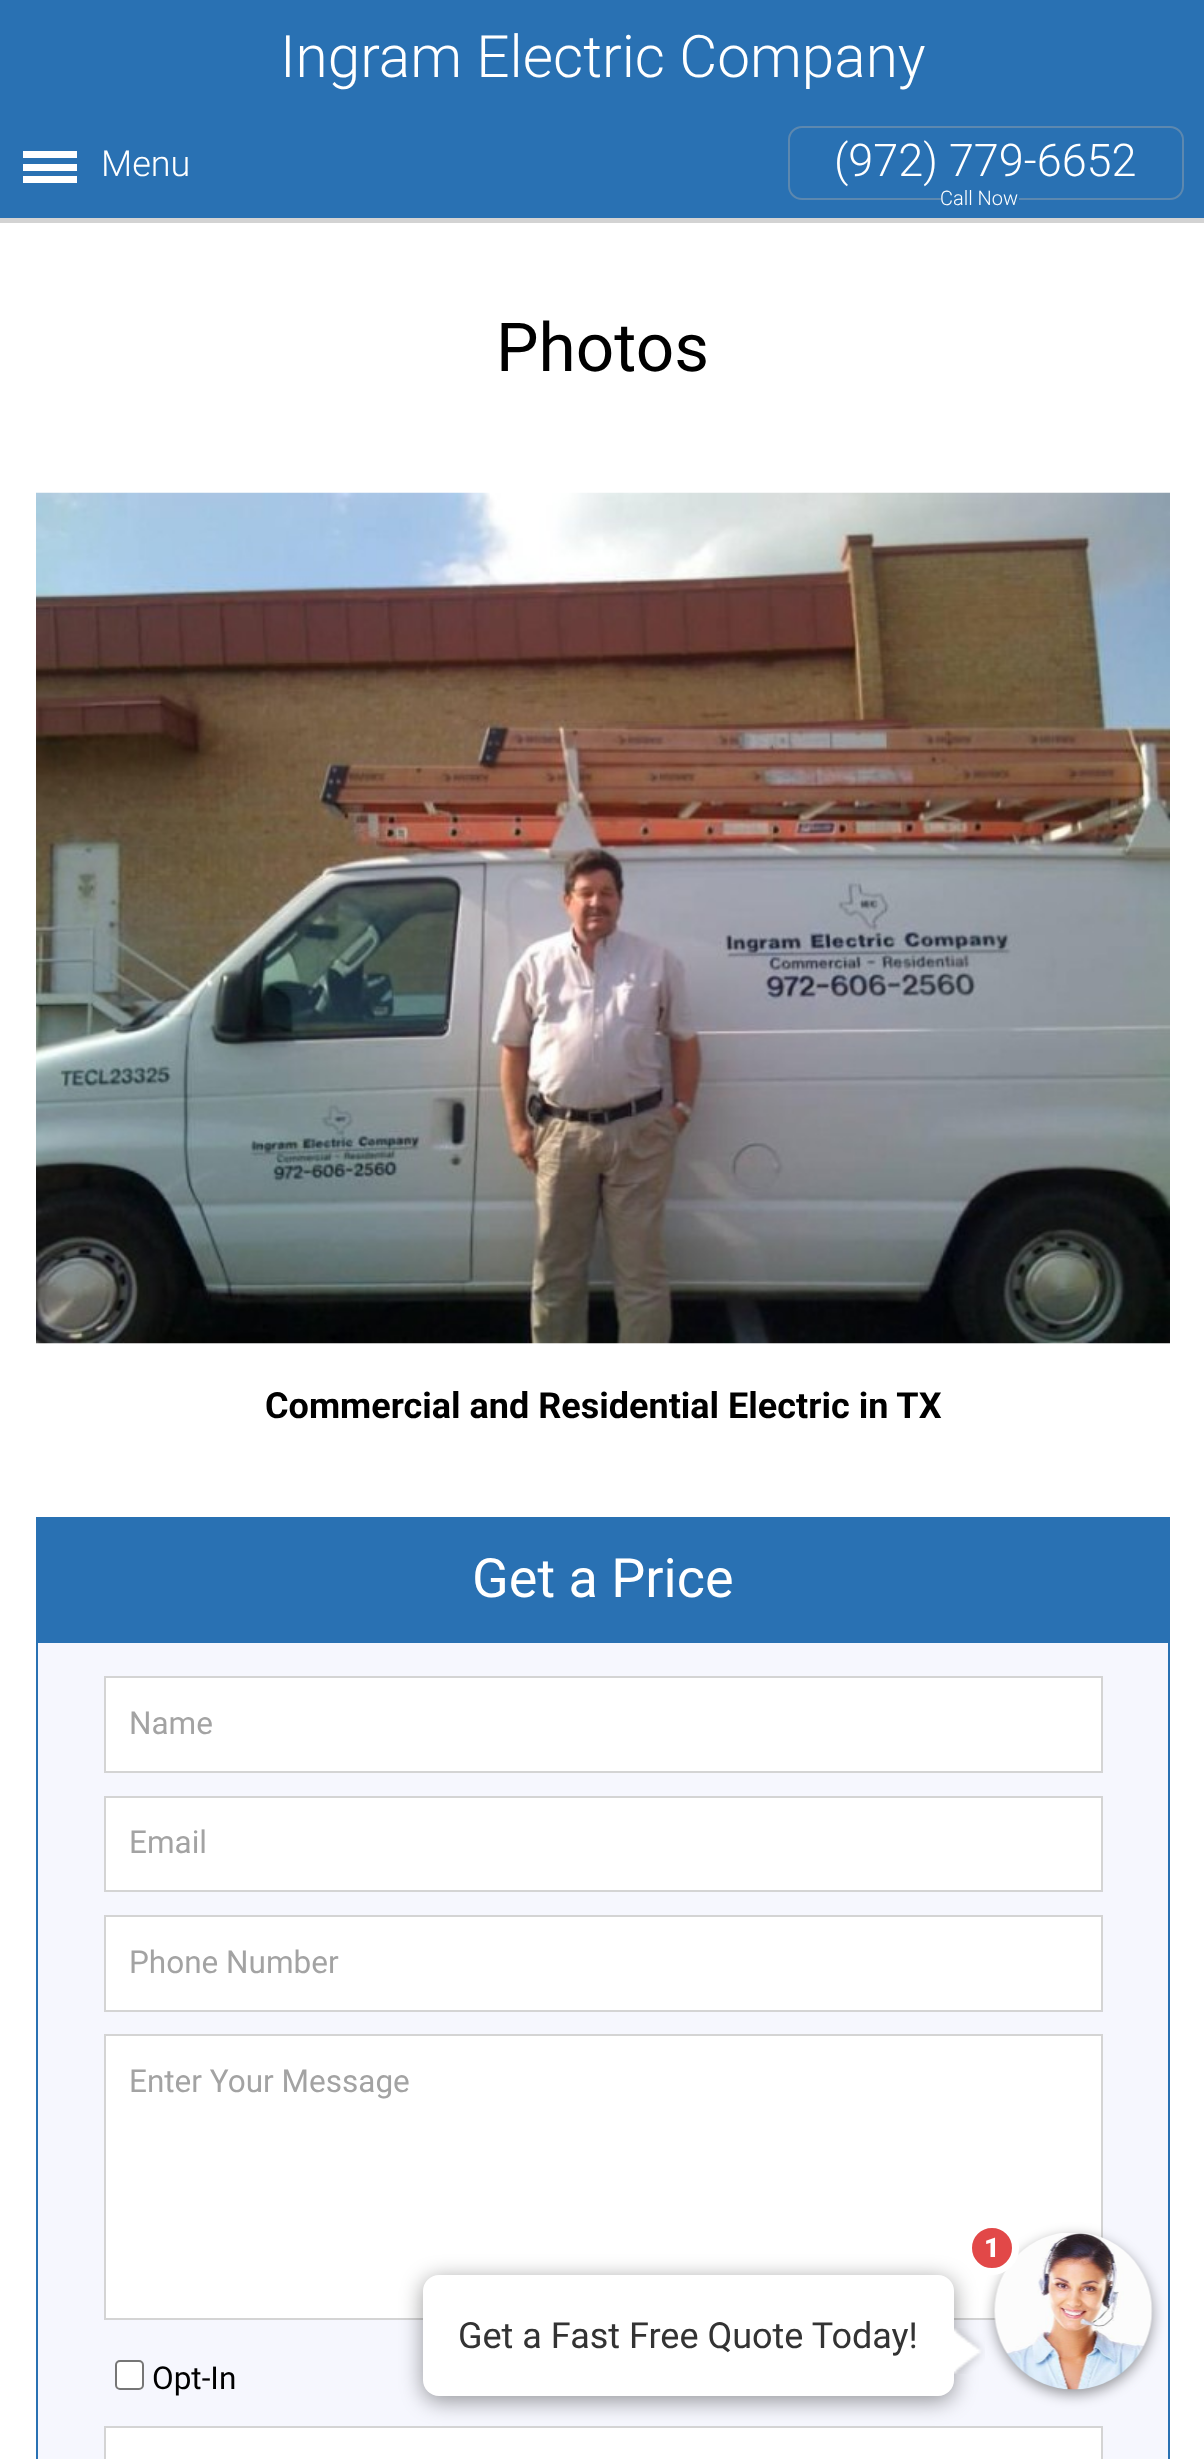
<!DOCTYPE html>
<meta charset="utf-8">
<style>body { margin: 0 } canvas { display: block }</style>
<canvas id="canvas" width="1204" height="2459"></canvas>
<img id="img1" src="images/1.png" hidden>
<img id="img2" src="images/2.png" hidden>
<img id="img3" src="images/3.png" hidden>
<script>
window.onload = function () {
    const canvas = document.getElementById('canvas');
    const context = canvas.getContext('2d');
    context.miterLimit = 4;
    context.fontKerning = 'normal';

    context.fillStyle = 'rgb(255, 255, 255)';
    context.fillRect(0, 0, 1204, 2459);
    context.fillStyle = 'rgb(211, 211, 211)';
    context.fillRect(0, 218, 1204, 5);
    context.fillStyle = 'rgb(41, 113, 179)';
    context.fillRect(0, 0, 1204, 218);
    context.fillStyle = 'rgb(255, 255, 255)';
    context.fillRect(23, 176, 54, 7);
    context.fillRect(23, 164, 54, 7);
    context.fillRect(23, 151, 54, 7);
    context.beginPath();
    context.roundRect(789, 127, 394, 72, 13);
    context.strokeStyle = 'rgb(93, 136, 175)';
    context.lineWidth = 2;
    context.stroke();
    context.fillStyle = 'rgb(41, 113, 179)';
    context.fillRect(941, 198, 78, 2);
    context.drawImage(document.getElementById('img1'), 36, 492, 1134, 852);
    context.fillRect(36, 1517, 1134, 942);
    context.fillStyle = 'rgb(246, 247, 254)';
    context.fillRect(38, 1643, 1130, 816);
    context.fillStyle = 'rgb(255, 255, 255)';
    context.beginPath();
    context.rect(105, 1677, 997, 95);
    context.fill();
    context.strokeStyle = 'rgb(212, 212, 212)';
    context.stroke();
    context.beginPath();
    context.rect(105, 1797, 997, 94);
    context.fill();
    context.stroke();
    context.beginPath();
    context.rect(105, 1916, 997, 95);
    context.fill();
    context.stroke();
    context.beginPath();
    context.rect(105, 2035, 997, 284);
    context.fill();
    context.stroke();
    context.beginPath();
    context.roundRect(116, 2361, 27, 28, 4);
    context.fill();
    context.strokeStyle = 'rgb(118, 118, 118)';
    context.stroke();
    context.beginPath();
    context.rect(105, 2427, 997, 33);
    context.fill();
    context.strokeStyle = 'rgb(212, 212, 212)';
    context.stroke();
    context.fillStyle = 'rgba(0, 0, 0, 0.4)';
    context.filter = 'blur(7px)';
    context.beginPath();
    context.roundRect(995, 2237, 157, 157, 78.5);
    context.fill();
    context.filter = 'none';
    context.drawImage(document.getElementById('img2'), 994, 2233, 159, 157);
    context.filter = 'blur(11px)';
    context.beginPath();
    context.roundRect(423, 2279, 531, 122, 16);
    context.fill();
    context.filter = 'none';
    context.fillStyle = 'rgb(226, 72, 72)';
    context.beginPath();
    context.arc(992, 2248, 23.5, 0, 2 * Math.PI);
    context.fill();
    context.strokeStyle = 'rgb(255, 255, 255)';
    context.lineWidth = 7;
    context.stroke();
    context.fillStyle = 'rgb(255, 255, 255)';
    context.beginPath();
    context.roundRect(423, 2275, 531, 121, 16);
    context.fill();
    context.drawImage(document.getElementById('img3'), 954, 2328, 31, 46);
    context.font = '300 58.5px Roboto';
    context.fillText('Ingram Electric Company', 280, 77);
    context.font = '300 36px Roboto';
    context.fillText('Menu', 101, 176);
    context.font = '300 45px Roboto';
    context.fillText('(972) 779-6652', 834, 176);
    context.font = '300 20px Roboto';
    context.fillText('Call Now', 940, 205);
    context.font = '67.5px Roboto';
    context.fillStyle = 'rgb(0, 0, 0)';
    context.fillText('Photos', 496, 371);
    context.font = 'bold 36px Roboto';
    context.fillText('Commercial and Residential Electric in TX', 265, 1418);
    context.font = '54px Roboto';
    context.fillStyle = 'rgb(255, 255, 255)';
    context.fillText('Get a Price', 472, 1597);
    context.font = '31.5px Roboto';
    context.fillStyle = 'rgb(163, 163, 163)';
    context.fillText('Name', 129, 1734);
    context.fillText('Email', 129, 1853);
    context.fillText('Phone Number', 129, 1973);
    context.fillText('Enter Your Message', 129, 2092);
    context.fillStyle = 'rgb(0, 0, 0)';
    context.fillText('Opt-In', 152, 2389);
    context.font = '900 27px Roboto';
    context.fillStyle = 'rgb(255, 255, 255)';
    context.fillText('1', 984, 2257);
    context.font = '36px Roboto';
    context.fillStyle = 'rgb(51, 51, 51)';
    context.fillText('Get a Fast Free Quote Today!', 458, 2348);
};
</script>
